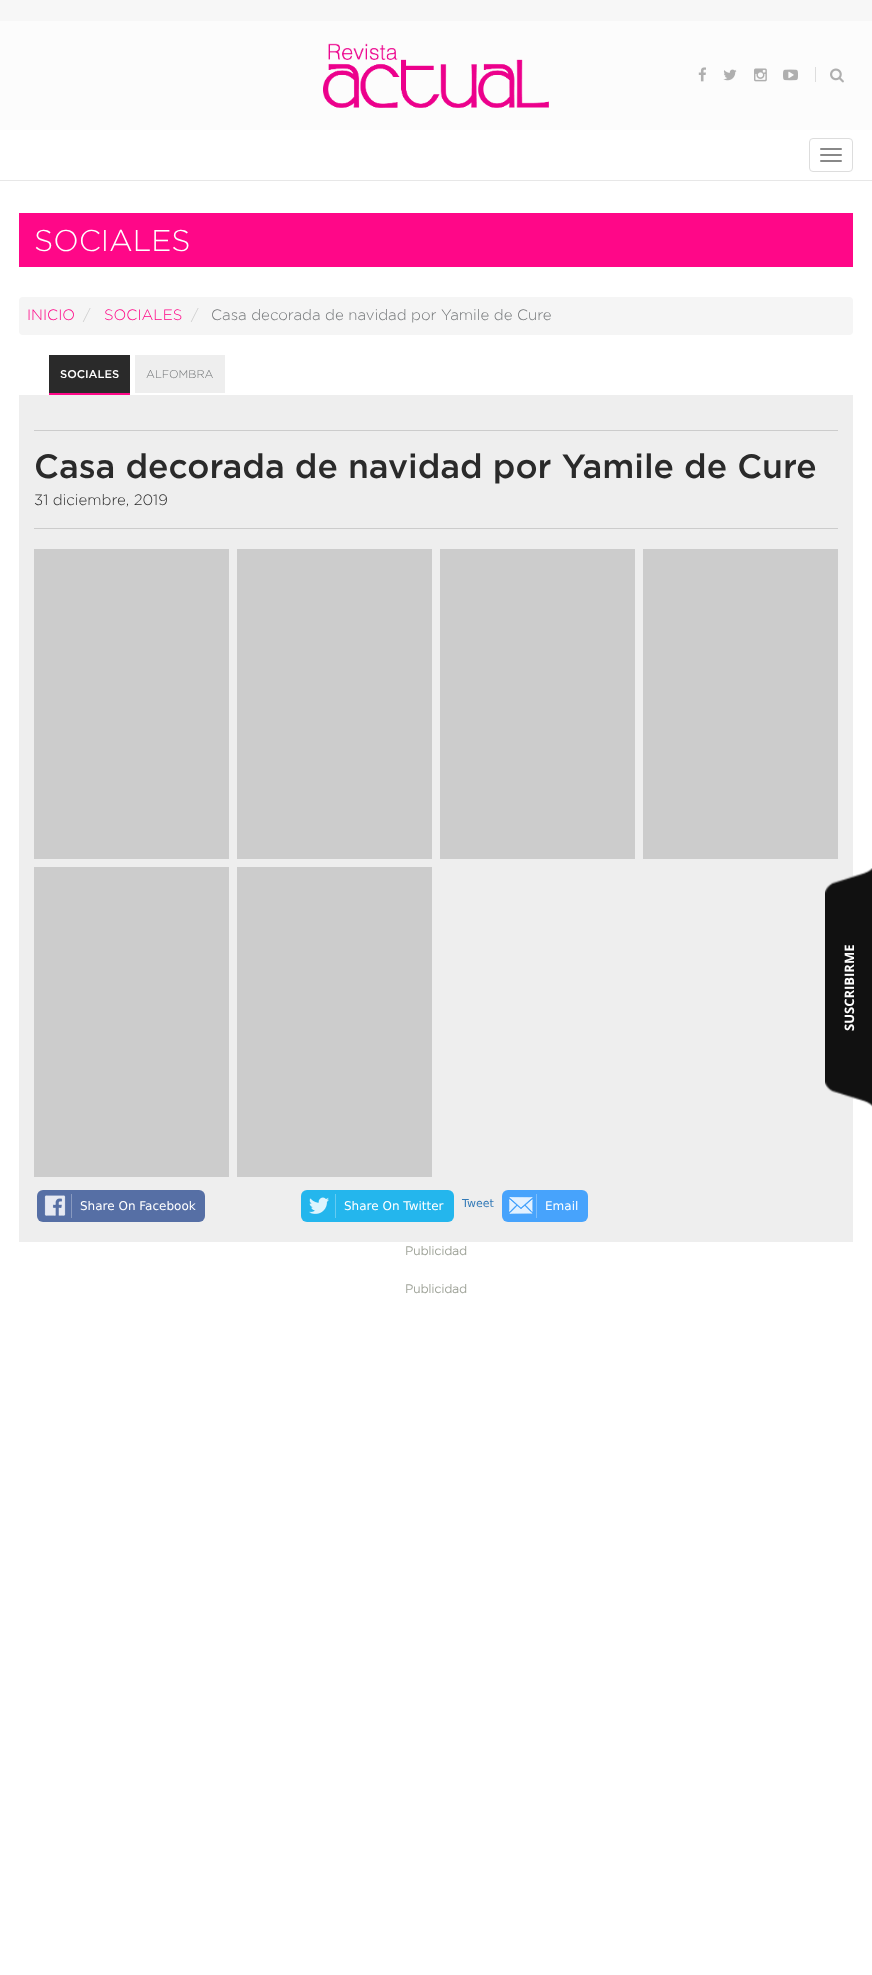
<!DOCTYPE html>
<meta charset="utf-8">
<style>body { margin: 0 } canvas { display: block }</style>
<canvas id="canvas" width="872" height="1975"></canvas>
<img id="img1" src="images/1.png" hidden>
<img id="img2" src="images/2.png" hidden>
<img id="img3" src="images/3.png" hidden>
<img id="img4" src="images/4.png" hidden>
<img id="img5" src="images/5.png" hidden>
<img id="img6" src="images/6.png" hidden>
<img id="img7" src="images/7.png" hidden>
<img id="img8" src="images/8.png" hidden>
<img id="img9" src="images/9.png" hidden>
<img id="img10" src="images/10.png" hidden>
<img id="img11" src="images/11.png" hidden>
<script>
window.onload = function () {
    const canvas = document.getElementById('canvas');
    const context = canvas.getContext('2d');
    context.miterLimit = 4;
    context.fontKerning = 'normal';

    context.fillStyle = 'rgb(255, 255, 255)';
    context.fillRect(0, 0, 872, 1975);
    context.fillStyle = 'rgb(247, 247, 247)';
    context.fillRect(0, 0, 872, 21);
    context.fillStyle = 'rgb(252, 252, 252)';
    context.fillRect(0, 21, 872, 109);
    context.drawImage(document.getElementById('img1'), 323, 43, 226, 65);
    context.drawImage(document.getElementById('img2'), 698, 67, 8, 15);
    context.drawImage(document.getElementById('img3'), 723, 69, 14, 12);
    context.drawImage(document.getElementById('img4'), 754, 68, 13, 14);
    context.drawImage(document.getElementById('img5'), 783, 69, 15, 12);
    context.fillStyle = 'rgb(221, 221, 221)';
    context.fillRect(815, 67, 1, 15);
    context.drawImage(document.getElementById('img6'), 830, 68, 14, 15);
    context.fillStyle = 'rgb(231, 231, 231)';
    context.fillRect(0, 180, 872, 1);
    context.beginPath();
    context.roundRect(809.5, 138.5, 43, 33, 3.5);
    context.strokeStyle = 'rgb(221, 221, 221)';
    context.stroke();
    context.fillStyle = 'rgb(136, 136, 136)';
    context.beginPath();
    context.roundRect(820, 148, 22, 2, 1);
    context.fill();
    context.beginPath();
    context.roundRect(820, 154, 22, 2, 1);
    context.fill();
    context.beginPath();
    context.roundRect(820, 160, 22, 2, 1);
    context.fill();
    context.fillStyle = 'rgb(255, 7, 136)';
    context.fillRect(19, 213, 834, 54);
    context.fillStyle = 'rgb(245, 245, 245)';
    context.beginPath();
    context.roundRect(19, 297, 834, 38, 4);
    context.fill();
    context.fillStyle = 'rgb(42, 42, 42)';
    context.fillRect(49, 355, 81, 38);
    context.fillStyle = 'rgb(255, 7, 136)';
    context.fillRect(49, 393, 81, 2);
    context.fillStyle = 'rgb(238, 238, 238)';
    context.fillRect(135, 355, 90, 38);
    context.fillRect(19, 395, 834, 847);
    context.fillStyle = 'rgb(204, 204, 204)';
    context.fillRect(34, 430, 804, 1);
    context.fillRect(34, 528, 804, 1);
    context.fillRect(34, 549, 195, 310);
    context.fillRect(237, 549, 195, 310);
    context.fillRect(440, 549, 195, 310);
    context.fillRect(643, 549, 195, 310);
    context.fillRect(34, 867, 195, 310);
    context.fillRect(237, 867, 195, 310);
    context.fillStyle = 'rgb(86, 111, 165)';
    context.beginPath();
    context.roundRect(37, 1190, 168, 32, 6);
    context.fill();
    context.drawImage(document.getElementById('img7'), 44, 1195, 22, 21);
    context.fillStyle = 'rgb(136, 153, 191)';
    context.fillRect(71, 1194, 1, 24);
    context.fillStyle = 'rgb(36, 182, 237)';
    context.beginPath();
    context.roundRect(301, 1190, 153, 32, 6);
    context.fill();
    context.drawImage(document.getElementById('img8'), 309, 1197, 20, 17);
    context.fillStyle = 'rgb(101, 203, 242)';
    context.fillRect(335, 1194, 1, 24);
    context.fillStyle = 'rgb(71, 163, 252)';
    context.beginPath();
    context.roundRect(502, 1190, 86, 32, 6);
    context.fill();
    context.drawImage(document.getElementById('img9'), 509, 1197, 24, 17);
    context.fillStyle = 'rgb(125, 190, 252)';
    context.fillRect(536, 1194, 1, 24);
    context.fillStyle = 'rgb(17, 17, 17)';
    context.fillRect(825, 905, 47, 165);
    context.drawImage(document.getElementById('img10'), 825, 868, 47, 37);
    context.drawImage(document.getElementById('img11'), 825, 1070, 47, 37);
    context.font = '300 30px Gotham';
    context.fillStyle = 'rgb(255, 255, 255)';
    context.fillText('SOCIALES', 34, 251);
    context.font = '300 15px Gotham';
    context.fillStyle = 'rgb(255, 7, 136)';
    context.fillText('INICIO', 27, 320);
    context.fillStyle = 'rgb(204, 204, 204)';
    context.fillText('/', 83, 320);
    context.fillStyle = 'rgb(255, 7, 136)';
    context.fillText('SOCIALES', 104, 320);
    context.fillStyle = 'rgb(204, 204, 204)';
    context.fillText('/', 191, 320);
    context.fillStyle = 'rgb(115, 118, 120)';
    context.fillText('Casa decorada de navidad por Yamile de Cure', 211, 320);
    context.font = '500 11.25px Gotham';
    context.fillStyle = 'rgb(255, 255, 255)';
    context.fillText('SOCIALES', 60, 378);
    context.font = '300 11.25px Gotham';
    context.fillStyle = 'rgb(115, 118, 120)';
    context.fillText('ALFOMBRA', 146, 378);
    context.font = '500 33.75px Gotham';
    context.fillStyle = 'rgb(42, 42, 42)';
    context.fillText('Casa decorada de navidad por Yamile de Cure', 34, 478);
    context.font = '300 15px Gotham';
    context.fillText('31 diciembre, 2019', 34, 505);
    context.font = '12px DejaVu Sans';
    context.fillStyle = 'rgb(255, 255, 255)';
    context.fillText('Share On Facebook', 80, 1210);
    context.fillText('Share On Twitter', 344, 1210);
    context.font = '11px DejaVu Sans';
    context.fillStyle = 'rgb(51, 122, 183)';
    context.fillText('Tweet', 462, 1207);
    context.font = '12px DejaVu Sans';
    context.fillStyle = 'rgb(255, 255, 255)';
    context.fillText('Email', 545, 1210);
    context.font = 'bold 13px Open Sans';
    context.save();
    context.translate(854, 1031);
    context.rotate(-90 * Math.PI / 180);
    context.fillText('SUSCRIBIRME', 0, 0);
    context.restore();
    context.font = 'bold 12px Gotham';
    context.fillStyle = 'rgb(161, 165, 155)';
    context.fillText('Publicidad', 405, 1255);
    context.fillText('Publicidad', 405, 1293);
};
</script>
